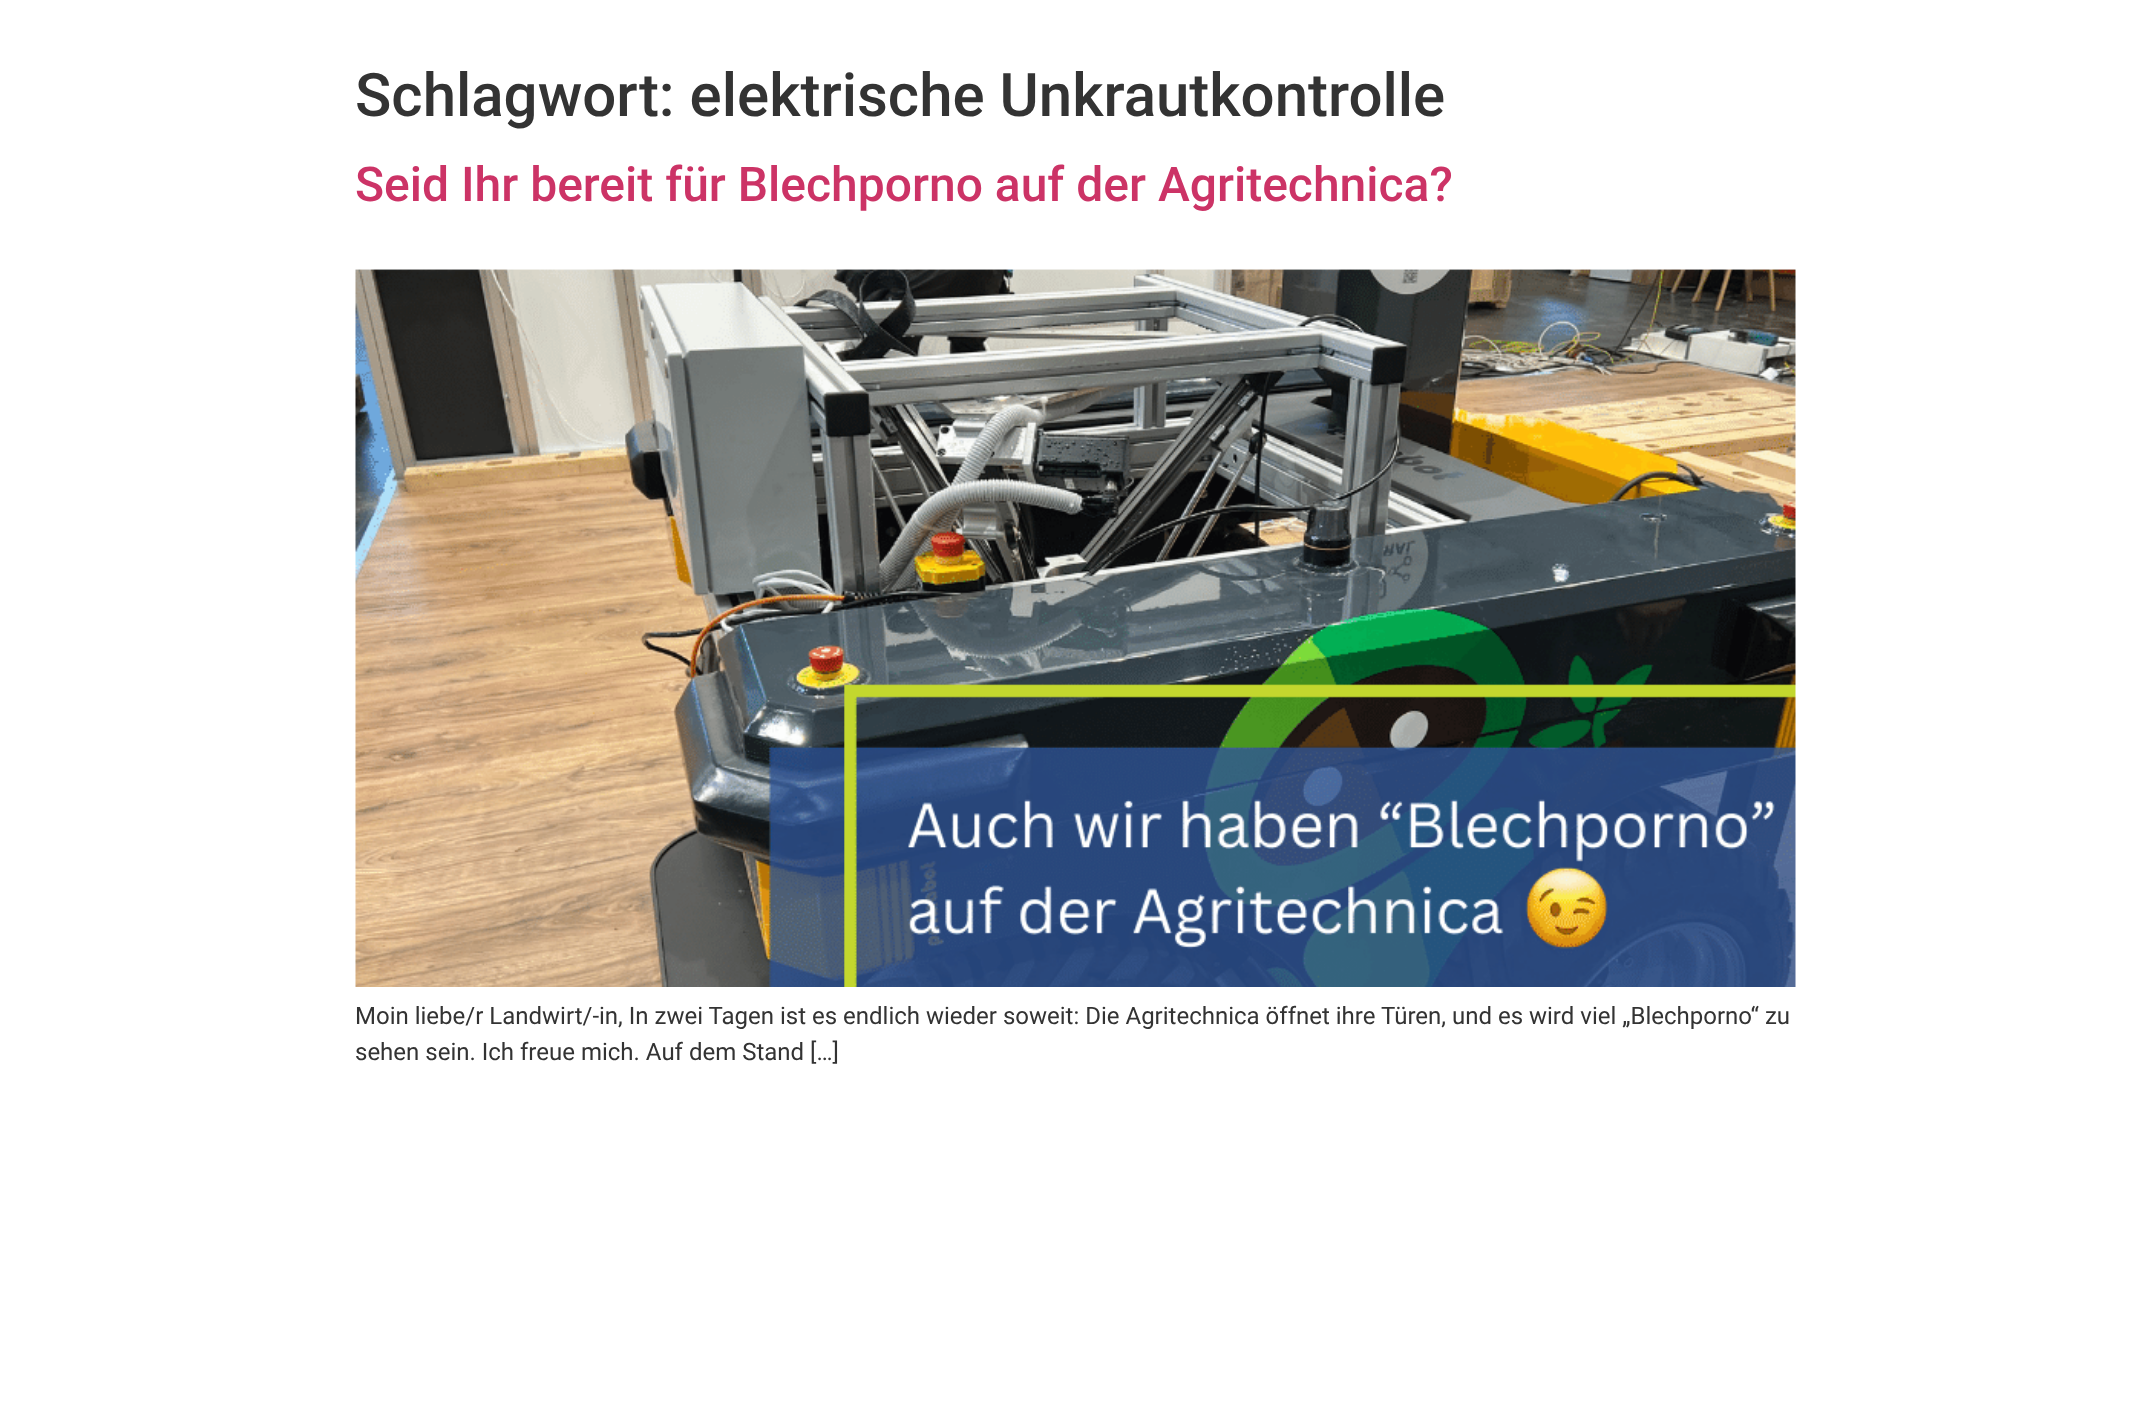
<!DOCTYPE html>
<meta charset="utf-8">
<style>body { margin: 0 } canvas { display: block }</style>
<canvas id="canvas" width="2149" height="1401"></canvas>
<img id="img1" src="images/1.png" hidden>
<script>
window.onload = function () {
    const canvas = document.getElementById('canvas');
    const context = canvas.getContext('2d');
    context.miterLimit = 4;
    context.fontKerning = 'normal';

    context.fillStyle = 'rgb(255, 255, 255)';
    context.fillRect(0, 0, 2149, 1401);
    context.drawImage(document.getElementById('img1'), 355, 269, 1441, 718);
    context.font = '500 60px Roboto';
    context.fillStyle = 'rgb(51, 51, 51)';
    context.fillText('Schlagwort: elektrische Unkrautkontrolle', 355, 116);
    context.font = '500 48px Roboto';
    context.fillStyle = 'rgb(204, 51, 102)';
    context.fillText('Seid Ihr bereit für Blechporno auf der Agritechnica?', 355, 201);
    context.font = '24px Roboto';
    context.fillStyle = 'rgb(51, 51, 51)';
    context.fillText('Moin liebe/r Landwirt/-in, In zwei Tagen ist es endlich wieder soweit: Die Agritechnica öffnet ihre Türen, und es wird viel „Blechporno“ zu', 355, 1024);
    context.fillText('sehen sein. Ich freue mich. Auf dem Stand […]', 355, 1060);
};
</script>
